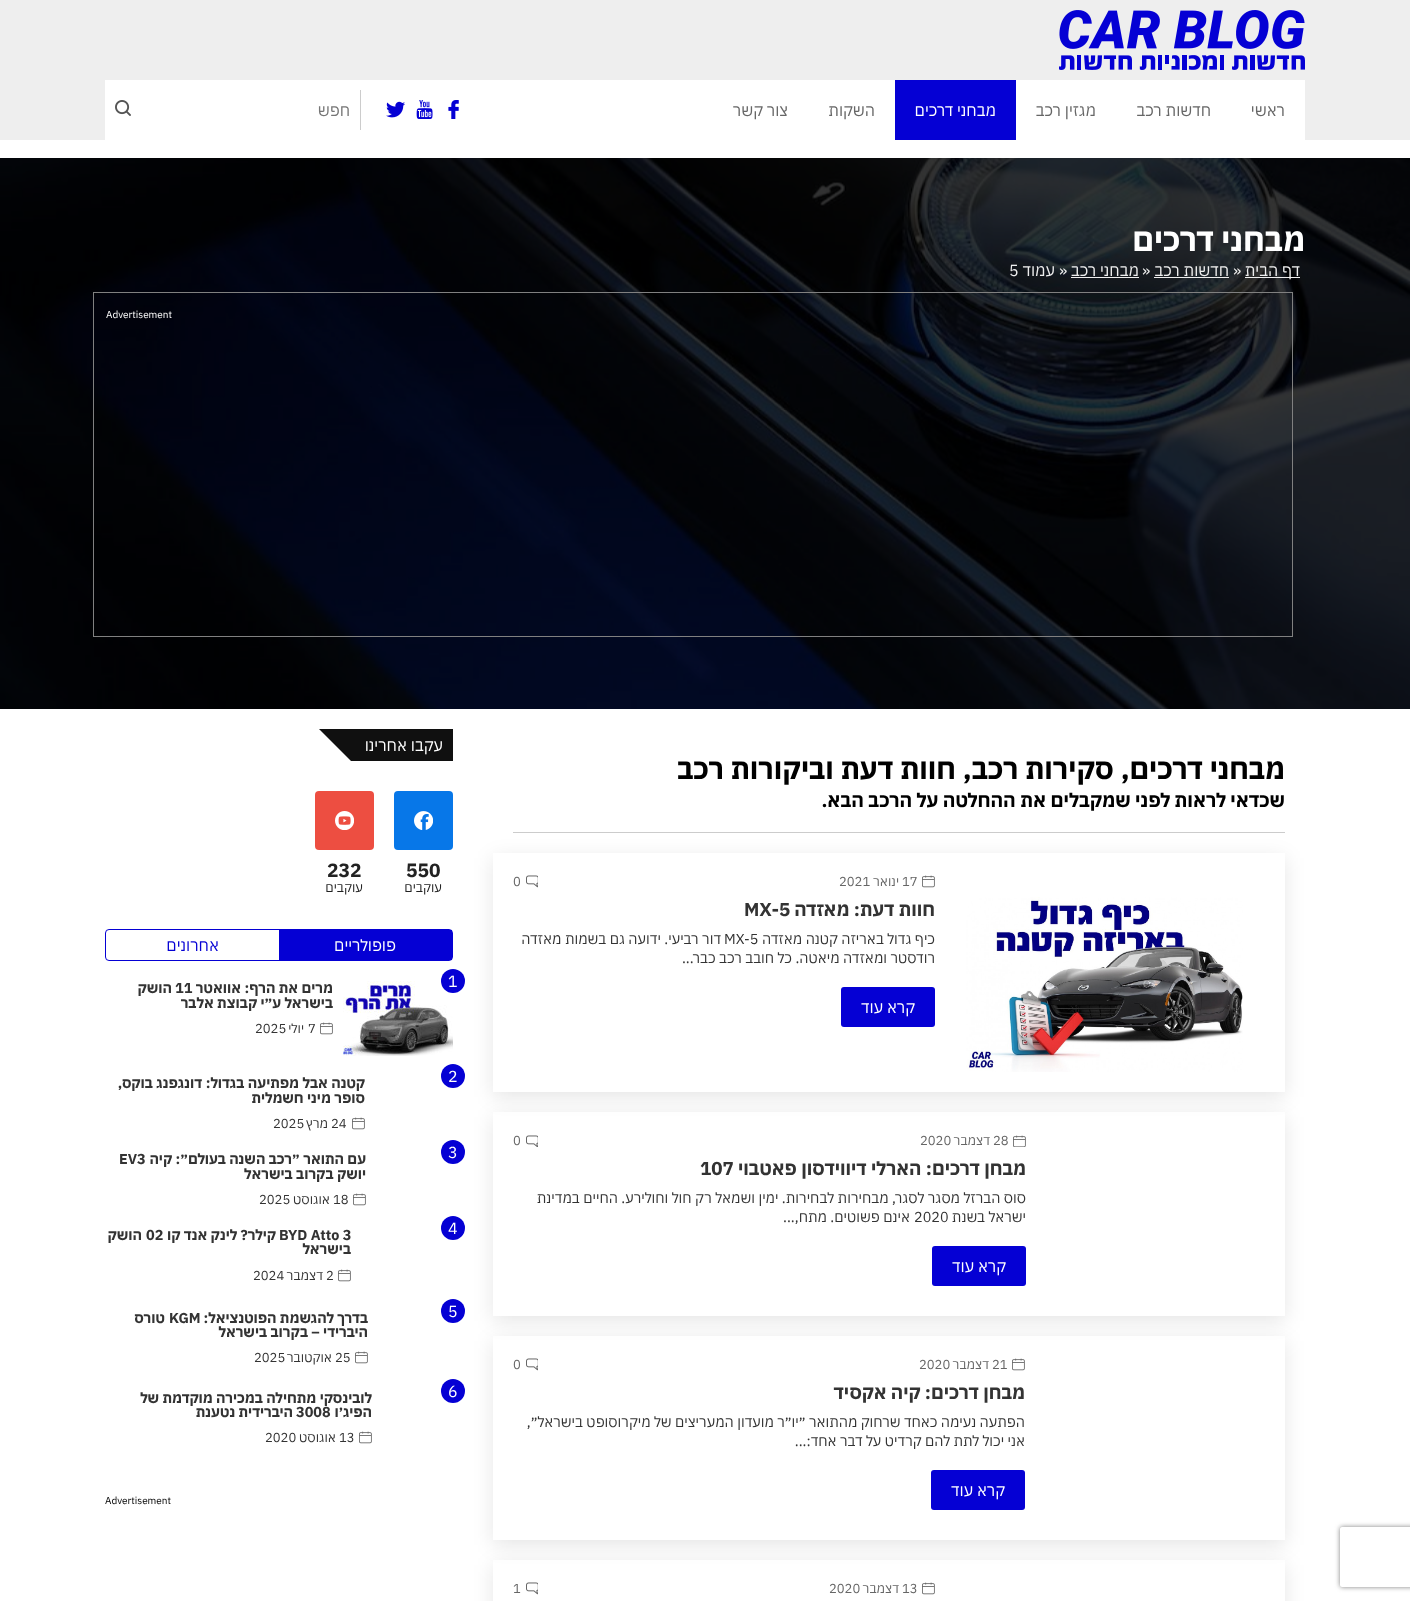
<!DOCTYPE html>
<meta charset="utf-8">
<style>body { margin: 0 } canvas { display: block }</style>
<canvas id="canvas" width="1410" height="1601"></canvas>
<img id="img1" src="images/1.png" hidden>
<img id="img2" src="images/2.png" hidden>
<img id="img3" src="images/3.png" hidden>
<img id="img4" src="images/4.png" hidden>
<img id="img5" src="images/5.png" hidden>
<img id="img6" src="images/6.png" hidden>
<img id="img7" src="images/7.png" hidden>
<img id="img8" src="images/8.png" hidden>
<img id="img9" src="images/9.png" hidden>
<img id="img10" src="images/10.png" hidden>
<img id="img11" src="images/11.png" hidden>
<img id="img12" src="images/12.png" hidden>
<img id="img13" src="images/13.png" hidden>
<img id="img14" src="images/14.png" hidden>
<script>
window.onload = function () {
    const canvas = document.getElementById('canvas');
    const context = canvas.getContext('2d');
    context.miterLimit = 4;
    context.fontKerning = 'normal';

    context.fillStyle = 'rgb(255, 255, 255)';
    context.fillRect(0, 0, 1410, 1601);
    context.fillStyle = 'rgb(238, 238, 238)';
    context.fillRect(0, 0, 1410, 140);
    context.drawImage(document.getElementById('img1'), 1059, 10, 246, 60);
    context.fillStyle = 'rgb(255, 255, 255)';
    context.fillRect(105, 80, 1200, 60);
    context.fillStyle = 'rgb(5, 0, 212)';
    context.fillRect(895, 80, 121, 60);
    context.drawImage(document.getElementById('img2'), 448, 100, 11, 19);
    context.drawImage(document.getElementById('img3'), 416, 100, 17, 19);
    context.drawImage(document.getElementById('img4'), 386, 101, 19, 17);
    context.fillStyle = 'rgb(204, 204, 204)';
    context.fillRect(360, 90, 1, 40);
    context.drawImage(document.getElementById('img5'), 115, 100, 16, 16);
    context.drawImage(document.getElementById('img6'), 0, 158, 1410, 551);
    context.fillStyle = 'rgb(238, 238, 238)';
    context.fillRect(1245, 277, 55, 1);
    context.fillRect(1154, 277, 75, 1);
    context.fillRect(1071, 277, 68, 1);
    context.strokeStyle = 'rgb(128, 128, 128)';
    context.strokeRect(93.5, 292.5, 1199, 344);
    context.save();
    context.beginPath();
    context.moveTo(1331, 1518);
    context.lineTo(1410, 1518);
    context.lineTo(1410, 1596);
    context.lineTo(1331, 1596);
    context.closePath();
    context.moveTo(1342, 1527);
    context.lineTo(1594, 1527);
    context.bezierCurveTo(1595, 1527, 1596, 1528, 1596, 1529);
    context.lineTo(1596, 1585);
    context.bezierCurveTo(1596, 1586, 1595, 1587, 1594, 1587);
    context.lineTo(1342, 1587);
    context.bezierCurveTo(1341, 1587, 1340, 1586, 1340, 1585);
    context.lineTo(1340, 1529);
    context.bezierCurveTo(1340, 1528, 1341, 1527, 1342, 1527);
    context.closePath();
    context.clip('evenodd');
    context.fillStyle = 'rgb(128, 128, 128)';
    context.filter = 'blur(2.5px)';
    context.beginPath();
    context.roundRect(1340, 1527, 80, 60, 2);
    context.fill();
    context.filter = 'none';
    context.restore();
    context.fillStyle = 'rgb(204, 204, 204)';
    context.fillRect(513, 832, 772, 1);
    context.save();
    context.beginPath();
    context.moveTo(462, 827);
    context.lineTo(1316, 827);
    context.lineTo(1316, 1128);
    context.lineTo(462, 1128);
    context.closePath();
    context.moveTo(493, 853);
    context.lineTo(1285, 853);
    context.lineTo(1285, 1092);
    context.lineTo(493, 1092);
    context.closePath();
    context.clip('evenodd');
    context.fillStyle = 'rgba(0, 0, 0, 0.1)';
    context.filter = 'blur(10px)';
    context.beginPath();
    context.rect(493, 858, 792, 239);
    context.fill();
    context.filter = 'none';
    context.restore();
    context.drawImage(document.getElementById('img7'), 966, 897, 277, 175);
    context.drawImage(document.getElementById('img8'), 922, 875, 13, 13);
    context.drawImage(document.getElementById('img9'), 526, 875, 12, 13);
    context.fillStyle = 'rgb(5, 0, 212)';
    context.beginPath();
    context.roundRect(841, 987, 94, 40, 3);
    context.fill();
    context.save();
    context.beginPath();
    context.moveTo(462, 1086);
    context.lineTo(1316, 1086);
    context.lineTo(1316, 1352);
    context.lineTo(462, 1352);
    context.closePath();
    context.moveTo(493, 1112);
    context.lineTo(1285, 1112);
    context.lineTo(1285, 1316);
    context.lineTo(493, 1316);
    context.closePath();
    context.clip('evenodd');
    context.fillStyle = 'rgba(0, 0, 0, 0.1)';
    context.filter = 'blur(10px)';
    context.beginPath();
    context.rect(493, 1117, 792, 204);
    context.fill();
    context.filter = 'none';
    context.restore();
    context.drawImage(document.getElementById('img10'), 1013, 1135, 13, 12);
    context.drawImage(document.getElementById('img11'), 526, 1135, 12, 12);
    context.beginPath();
    context.roundRect(932, 1246, 94, 40, 3);
    context.fill();
    context.save();
    context.beginPath();
    context.moveTo(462, 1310);
    context.lineTo(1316, 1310);
    context.lineTo(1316, 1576);
    context.lineTo(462, 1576);
    context.closePath();
    context.moveTo(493, 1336);
    context.lineTo(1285, 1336);
    context.lineTo(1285, 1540);
    context.lineTo(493, 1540);
    context.closePath();
    context.clip('evenodd');
    context.fillStyle = 'rgba(0, 0, 0, 0.1)';
    context.filter = 'blur(10px)';
    context.beginPath();
    context.rect(493, 1341, 792, 204);
    context.fill();
    context.filter = 'none';
    context.restore();
    context.drawImage(document.getElementById('img8'), 1012, 1358, 13, 13);
    context.drawImage(document.getElementById('img9'), 526, 1358, 12, 13);
    context.beginPath();
    context.roundRect(931, 1470, 94, 40, 3);
    context.fill();
    context.save();
    context.beginPath();
    context.moveTo(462, 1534);
    context.lineTo(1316, 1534);
    context.lineTo(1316, 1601);
    context.lineTo(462, 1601);
    context.closePath();
    context.moveTo(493, 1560);
    context.lineTo(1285, 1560);
    context.lineTo(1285, 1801);
    context.lineTo(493, 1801);
    context.closePath();
    context.clip('evenodd');
    context.fillStyle = 'rgba(0, 0, 0, 0.1)';
    context.filter = 'blur(10px)';
    context.beginPath();
    context.rect(493, 1565, 792, 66);
    context.fill();
    context.filter = 'none';
    context.restore();
    context.drawImage(document.getElementById('img8'), 922, 1582, 13, 13);
    context.drawImage(document.getElementById('img9'), 526, 1582, 12, 13);
    context.fillStyle = 'rgb(16, 16, 16)';
    context.fillRect(379, 729, 74, 32);
    context.beginPath();
    context.moveTo(319, 729);
    context.lineTo(379, 729);
    context.lineTo(411, 761);
    context.lineTo(351, 761);
    context.closePath();
    context.fill();
    context.fillStyle = 'rgb(7, 119, 232)';
    context.beginPath();
    context.roundRect(394, 791, 59, 59, 4);
    context.fill();
    context.drawImage(document.getElementById('img12'), 414, 811, 19, 19);
    context.fillStyle = 'rgb(237, 78, 65)';
    context.beginPath();
    context.roundRect(315, 791, 59, 59, 4);
    context.fill();
    context.drawImage(document.getElementById('img13'), 335, 811, 19, 19);
    context.beginPath();
    context.roundRect(105.5, 929.5, 347, 31, 3.5);
    context.strokeStyle = 'rgb(5, 0, 212)';
    context.stroke();
    context.fillStyle = 'rgb(5, 0, 212)';
    context.fillRect(279, 930, 173, 30);
    context.drawImage(document.getElementById('img14'), 343, 981, 110, 75);
    context.beginPath();
    context.arc(453, 981, 12, 0, 2 * Math.PI);
    context.fill();
    context.drawImage(document.getElementById('img8'), 320, 1022, 13, 13);
    context.beginPath();
    context.arc(453, 1076, 12, 0, 2 * Math.PI);
    context.fill();
    context.drawImage(document.getElementById('img8'), 352, 1117, 13, 13);
    context.beginPath();
    context.arc(453, 1152, 12, 0, 2 * Math.PI);
    context.fill();
    context.drawImage(document.getElementById('img8'), 353, 1193, 13, 13);
    context.beginPath();
    context.arc(453, 1228, 12, 0, 2 * Math.PI);
    context.fill();
    context.drawImage(document.getElementById('img8'), 338, 1269, 13, 13);
    context.beginPath();
    context.arc(453, 1311, 12, 0, 2 * Math.PI);
    context.fill();
    context.drawImage(document.getElementById('img8'), 355, 1351, 13, 13);
    context.beginPath();
    context.arc(453, 1391, 12, 0, 2 * Math.PI);
    context.fill();
    context.drawImage(document.getElementById('img8'), 359, 1431, 13, 13);
    context.direction = 'rtl';
    context.font = '16px IBM Plex Sans Hebrew';
    context.fillStyle = 'rgb(102, 102, 102)';
    context.fillText('ראשי', 1285, 116);
    context.fillText('חדשות רכב', 1211, 116);
    context.fillText('מגזין רכב', 1096, 116);
    context.fillStyle = 'rgb(255, 255, 255)';
    context.fillText('מבחני דרכים', 996, 116);
    context.fillStyle = 'rgb(102, 102, 102)';
    context.fillText('השקות', 875, 116);
    context.fillText('צור קשר', 788, 116);
    context.fillStyle = 'rgb(117, 117, 117)';
    context.fillText('חפש', 350, 116);
    context.font = 'bold 32px IBM Plex Sans Hebrew';
    context.fillStyle = 'rgb(255, 255, 255)';
    context.fillText('מבחני דרכים', 1305, 251);
    context.font = '16px IBM Plex Sans Hebrew';
    context.fillStyle = 'rgb(238, 238, 238)';
    context.fillText('דף הבית', 1300, 276);
    context.direction = 'ltr';
    context.fillText('»', 1233, 276);
    context.direction = 'rtl';
    context.fillText('חדשות רכב', 1229, 276);
    context.direction = 'ltr';
    context.fillText('»', 1142, 276);
    context.direction = 'rtl';
    context.fillText('מבחני רכב', 1139, 276);
    context.direction = 'ltr';
    context.fillText('»', 1059, 276);
    context.direction = 'rtl';
    context.fillText('עמוד', 1055, 276);
    context.direction = 'ltr';
    context.fillText('5', 1009, 276);
    context.font = '10px IBM Plex Sans Hebrew';
    context.fillStyle = 'rgb(255, 255, 255)';
    context.fillText('Advertisement', 106, 318);
    context.direction = 'rtl';
    context.font = 'bold 28.8px IBM Plex Sans Hebrew';
    context.fillStyle = 'rgb(0, 0, 0)';
    context.fillText('מבחני דרכים, סקירות רכב, חוות דעת וביקורות רכב', 1285, 779);
    context.font = 'bold 19.2px IBM Plex Sans Hebrew';
    context.fillText('שכדאי לראות לפני שמקבלים את ההחלטה על הרכב הבא.', 1285, 807);
    context.direction = 'ltr';
    context.font = '13px IBM Plex Sans Hebrew';
    context.fillStyle = 'rgb(102, 102, 102)';
    context.fillText('17', 902, 886);
    context.direction = 'rtl';
    context.fillText('ינואר', 899, 886);
    context.direction = 'ltr';
    context.fillText('2021', 839, 886);
    context.fillText('0', 513, 886);
    context.direction = 'rtl';
    context.font = 'bold 18.75px IBM Plex Sans Hebrew';
    context.fillStyle = 'rgb(51, 51, 51)';
    context.fillText('חוות דעת: מאזדה', 935, 916);
    context.direction = 'ltr';
    context.fillText('MX-5', 744, 916);
    context.direction = 'rtl';
    context.font = '14.4px IBM Plex Sans Hebrew';
    context.fillText('כיף גדול באריזה קטנה מאזדה', 935, 944);
    context.direction = 'ltr';
    context.fillText('MX-5', 724, 944);
    context.direction = 'rtl';
    context.fillText('דור רביעי. ידועה גם בשמות מאזדה', 721, 944);
    context.fillText('רודסטר ומאזדה מיאטה. כל חובב רכב כבר...', 935, 963);
    context.font = '16px IBM Plex Sans Hebrew';
    context.fillStyle = 'rgb(255, 255, 255)';
    context.fillText('קרא עוד', 915, 1013);
    context.direction = 'ltr';
    context.font = '13px IBM Plex Sans Hebrew';
    context.fillStyle = 'rgb(102, 102, 102)';
    context.fillText('28', 993, 1145);
    context.direction = 'rtl';
    context.fillText('דצמבר', 990, 1145);
    context.direction = 'ltr';
    context.fillText('2020', 920, 1145);
    context.fillText('0', 513, 1145);
    context.direction = 'rtl';
    context.font = 'bold 18.75px IBM Plex Sans Hebrew';
    context.fillStyle = 'rgb(51, 51, 51)';
    context.fillText('מבחן דרכים: הארלי דיווידסון פאטבוי', 1026, 1175);
    context.direction = 'ltr';
    context.fillText('107', 700, 1175);
    context.direction = 'rtl';
    context.font = '14.4px IBM Plex Sans Hebrew';
    context.fillText('סוס הברזל מסגר לסגר, מבחירות לבחירות. ימין ושמאל רק חול וחולירע. החיים במדינת', 1026, 1203);
    context.fillText('ישראל בשנת', 1026, 1222);
    context.direction = 'ltr';
    context.fillText('2020', 914, 1222);
    context.direction = 'rtl';
    context.fillText('אינם פשוטים. מתח,...', 910, 1222);
    context.font = '16px IBM Plex Sans Hebrew';
    context.fillStyle = 'rgb(255, 255, 255)';
    context.fillText('קרא עוד', 1006, 1272);
    context.direction = 'ltr';
    context.font = '13px IBM Plex Sans Hebrew';
    context.fillStyle = 'rgb(102, 102, 102)';
    context.fillText('21', 992, 1369);
    context.direction = 'rtl';
    context.fillText('דצמבר', 989, 1369);
    context.direction = 'ltr';
    context.fillText('2020', 919, 1369);
    context.fillText('0', 513, 1369);
    context.direction = 'rtl';
    context.font = 'bold 18.75px IBM Plex Sans Hebrew';
    context.fillStyle = 'rgb(51, 51, 51)';
    context.fillText('מבחן דרכים: קיה אקסיד', 1025, 1399);
    context.font = '14.4px IBM Plex Sans Hebrew';
    context.fillText('הפתעה נעימה כאחד שרחוק מהתואר ״יו״ר מועדון המעריצים של מיקרוסופט בישראל״,', 1025, 1427);
    context.fillText('אני יכול לתת להם קרדיט על דבר אחד:...', 1025, 1446);
    context.font = '16px IBM Plex Sans Hebrew';
    context.fillStyle = 'rgb(255, 255, 255)';
    context.fillText('קרא עוד', 1005, 1496);
    context.direction = 'ltr';
    context.font = '13px IBM Plex Sans Hebrew';
    context.fillStyle = 'rgb(102, 102, 102)';
    context.fillText('13', 902, 1593);
    context.direction = 'rtl';
    context.fillText('דצמבר', 899, 1593);
    context.direction = 'ltr';
    context.fillText('2020', 829, 1593);
    context.fillText('1', 513, 1593);
    context.direction = 'rtl';
    context.font = '16px IBM Plex Sans Hebrew';
    context.fillStyle = 'rgb(255, 255, 255)';
    context.fillText('עקבו אחרינו', 443, 751);
    context.direction = 'ltr';
    context.font = 'bold 19.2px IBM Plex Sans Hebrew';
    context.fillStyle = 'rgb(34, 34, 34)';
    context.fillText('550', 406, 877);
    context.direction = 'rtl';
    context.font = '13px IBM Plex Sans Hebrew';
    context.fillText('עוקבים', 442, 892);
    context.direction = 'ltr';
    context.font = 'bold 19.2px IBM Plex Sans Hebrew';
    context.fillText('232', 327, 877);
    context.direction = 'rtl';
    context.font = '13px IBM Plex Sans Hebrew';
    context.fillText('עוקבים', 363, 892);
    context.font = '16px IBM Plex Sans Hebrew';
    context.fillStyle = 'rgb(255, 255, 255)';
    context.fillText('פופולריים', 396, 951);
    context.fillStyle = 'rgb(5, 0, 212)';
    context.fillText('אחרונים', 219, 951);
    context.direction = 'ltr';
    context.fillStyle = 'rgb(255, 255, 255)';
    context.fillText('1', 448, 987);
    context.direction = 'rtl';
    context.font = 'bold 14.4px IBM Plex Sans Hebrew';
    context.fillStyle = 'rgb(51, 51, 51)';
    context.fillText('מרים את הרף: אוואטר', 333, 993);
    context.direction = 'ltr';
    context.fillText('11', 175, 993);
    context.direction = 'rtl';
    context.fillText('הושק', 172, 993);
    context.fillText('בישראל ע״י קבוצת אלבר', 333, 1008);
    context.direction = 'ltr';
    context.font = '13px IBM Plex Sans Hebrew';
    context.fillText('7', 308, 1033);
    context.direction = 'rtl';
    context.fillText('יולי', 304, 1033);
    context.direction = 'ltr';
    context.fillText('2025', 255, 1033);
    context.font = '16px IBM Plex Sans Hebrew';
    context.fillStyle = 'rgb(255, 255, 255)';
    context.fillText('2', 448, 1082);
    context.direction = 'rtl';
    context.font = 'bold 14.4px IBM Plex Sans Hebrew';
    context.fillStyle = 'rgb(51, 51, 51)';
    context.fillText('קטנה אבל מפתיעה בגדול: דונגפנג בוקס,', 365, 1088);
    context.fillText('סופר מיני חשמלית', 365, 1103);
    context.direction = 'ltr';
    context.font = '13px IBM Plex Sans Hebrew';
    context.fillText('24', 331, 1128);
    context.direction = 'rtl';
    context.fillText('מרץ', 328, 1128);
    context.direction = 'ltr';
    context.fillText('2025', 273, 1128);
    context.font = '16px IBM Plex Sans Hebrew';
    context.fillStyle = 'rgb(255, 255, 255)';
    context.fillText('3', 448, 1158);
    context.direction = 'rtl';
    context.font = 'bold 14.4px IBM Plex Sans Hebrew';
    context.fillStyle = 'rgb(51, 51, 51)';
    context.fillText('עם התואר ״רכב השנה בעולם״: קיה', 366, 1164);
    context.direction = 'ltr';
    context.fillText('EV3', 119, 1164);
    context.direction = 'rtl';
    context.fillText('יושק בקרוב בישראל', 366, 1179);
    context.direction = 'ltr';
    context.font = '13px IBM Plex Sans Hebrew';
    context.fillText('18', 333, 1204);
    context.direction = 'rtl';
    context.fillText('אוגוסט', 330, 1204);
    context.direction = 'ltr';
    context.fillText('2025', 259, 1204);
    context.font = '16px IBM Plex Sans Hebrew';
    context.fillStyle = 'rgb(255, 255, 255)';
    context.fillText('4', 448, 1234);
    context.font = 'bold 14.4px IBM Plex Sans Hebrew';
    context.fillStyle = 'rgb(51, 51, 51)';
    context.fillText('BYD Atto 3', 279, 1240);
    context.direction = 'rtl';
    context.fillText('קילר? לינק אנד קו', 276, 1240);
    context.direction = 'ltr';
    context.fillText('02', 146, 1240);
    context.direction = 'rtl';
    context.fillText('הושק', 142, 1240);
    context.fillText('בישראל', 351, 1254);
    context.direction = 'ltr';
    context.font = '13px IBM Plex Sans Hebrew';
    context.fillText('2', 326, 1280);
    context.direction = 'rtl';
    context.fillText('דצמבר', 323, 1280);
    context.direction = 'ltr';
    context.fillText('2024', 253, 1280);
    context.font = '16px IBM Plex Sans Hebrew';
    context.fillStyle = 'rgb(255, 255, 255)';
    context.fillText('5', 448, 1317);
    context.direction = 'rtl';
    context.font = 'bold 14.4px IBM Plex Sans Hebrew';
    context.fillStyle = 'rgb(51, 51, 51)';
    context.fillText('בדרך להגשמת הפוטנציאל:', 368, 1323);
    context.direction = 'ltr';
    context.fillText('KGM', 169, 1323);
    context.direction = 'rtl';
    context.fillText('טורס', 165, 1323);
    context.fillText('היברידי –', 368, 1337);
    context.fillText('בקרוב בישראל', 308, 1337);
    context.direction = 'ltr';
    context.font = '13px IBM Plex Sans Hebrew';
    context.fillText('25', 335, 1362);
    context.direction = 'rtl';
    context.fillText('אוקטובר', 332, 1362);
    context.direction = 'ltr';
    context.fillText('2025', 254, 1362);
    context.font = '16px IBM Plex Sans Hebrew';
    context.fillStyle = 'rgb(255, 255, 255)';
    context.fillText('6', 448, 1397);
    context.direction = 'rtl';
    context.font = 'bold 14.4px IBM Plex Sans Hebrew';
    context.fillStyle = 'rgb(51, 51, 51)';
    context.fillText('לובינסקי מתחילה במכירה מוקדמת של', 372, 1403);
    context.fillText('הפיג׳ו', 372, 1417);
    context.direction = 'ltr';
    context.fillText('3008', 296, 1417);
    context.direction = 'rtl';
    context.fillText('היברידית נטענת', 293, 1417);
    context.direction = 'ltr';
    context.font = '13px IBM Plex Sans Hebrew';
    context.fillText('13', 339, 1442);
    context.direction = 'rtl';
    context.fillText('אוגוסט', 336, 1442);
    context.direction = 'ltr';
    context.fillText('2020', 265, 1442);
    context.font = '10px IBM Plex Sans Hebrew';
    context.fillStyle = 'rgb(0, 0, 0)';
    context.fillText('Advertisement', 105, 1504);
};
</script>
